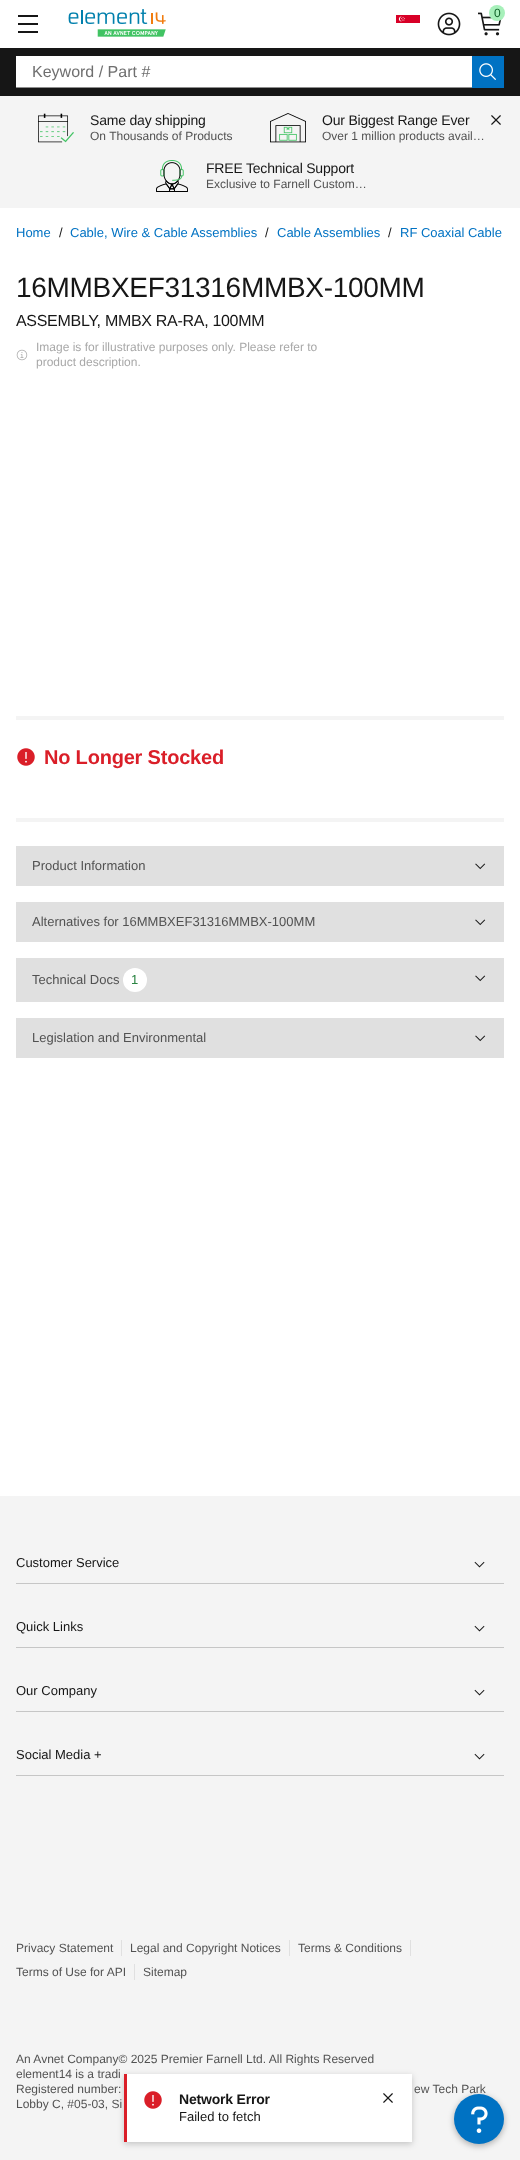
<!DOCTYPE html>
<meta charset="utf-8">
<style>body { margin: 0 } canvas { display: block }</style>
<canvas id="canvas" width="520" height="2160"></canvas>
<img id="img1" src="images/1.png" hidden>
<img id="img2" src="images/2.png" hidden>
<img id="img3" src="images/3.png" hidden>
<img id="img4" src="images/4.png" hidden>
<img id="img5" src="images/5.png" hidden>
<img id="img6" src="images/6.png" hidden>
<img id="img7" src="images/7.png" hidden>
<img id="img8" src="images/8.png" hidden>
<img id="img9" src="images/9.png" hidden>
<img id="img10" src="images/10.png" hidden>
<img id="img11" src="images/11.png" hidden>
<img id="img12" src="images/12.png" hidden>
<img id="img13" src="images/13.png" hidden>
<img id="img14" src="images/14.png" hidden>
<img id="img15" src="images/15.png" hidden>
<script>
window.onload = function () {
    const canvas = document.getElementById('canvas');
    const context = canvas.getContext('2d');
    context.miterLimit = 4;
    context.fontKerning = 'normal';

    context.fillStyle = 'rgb(255, 255, 255)';
    context.fillRect(0, 0, 520, 2160);
    context.fillStyle = 'rgb(22, 22, 22)';
    context.fillRect(18, 15, 20, 2);
    context.fillRect(18, 23, 20, 2);
    context.fillRect(18, 31, 20, 2);
    context.drawImage(document.getElementById('img1'), 68, 9, 98, 28);
    context.drawImage(document.getElementById('img2'), 396, 15, 24, 8);
    context.drawImage(document.getElementById('img3'), 437, 12, 24, 24);
    context.drawImage(document.getElementById('img4'), 478, 12, 24, 24);
    context.fillStyle = 'rgb(167, 240, 186)';
    context.beginPath();
    context.arc(497, 13, 8, 0, 2 * Math.PI);
    context.fill();
    context.fillStyle = 'rgb(22, 22, 22)';
    context.fillRect(0, 48, 520, 48);
    context.fillStyle = 'rgb(255, 255, 255)';
    context.fillRect(16, 56, 456, 31);
    context.fillStyle = 'rgb(141, 141, 141)';
    context.fillRect(16, 87, 456, 1);
    context.fillStyle = 'rgb(0, 114, 195)';
    context.fillRect(472, 56, 32, 32);
    context.drawImage(document.getElementById('img5'), 479, 63, 17, 17);
    context.fillStyle = 'rgb(244, 244, 244)';
    context.fillRect(0, 96, 520, 112);
    context.drawImage(document.getElementById('img6'), 38, 113, 36, 30);
    context.drawImage(document.getElementById('img7'), 270, 113, 36, 30);
    context.drawImage(document.getElementById('img8'), 156, 160, 32, 32);
    context.drawImage(document.getElementById('img9'), 491, 115, 10, 10);
    context.drawImage(document.getElementById('img10'), 16, 349, 12, 12);
    context.fillRect(16, 716, 488, 4);
    context.drawImage(document.getElementById('img11'), 17, 748, 18, 18);
    context.fillRect(16, 818, 488, 4);
    context.fillStyle = 'rgb(224, 224, 224)';
    context.fillRect(16, 846, 488, 40);
    context.drawImage(document.getElementById('img12'), 475, 863, 11, 7);
    context.fillRect(16, 902, 488, 40);
    context.drawImage(document.getElementById('img12'), 475, 919, 11, 7);
    context.fillRect(16, 958, 488, 44);
    context.fillStyle = 'rgb(255, 255, 255)';
    context.beginPath();
    context.arc(135, 980, 12, 0, 2 * Math.PI);
    context.fill();
    context.drawImage(document.getElementById('img12'), 475, 975, 11, 7);
    context.fillStyle = 'rgb(224, 224, 224)';
    context.fillRect(16, 1018, 488, 40);
    context.drawImage(document.getElementById('img12'), 475, 1035, 11, 7);
    context.fillStyle = 'rgb(244, 244, 244)';
    context.fillRect(0, 1496, 520, 664);
    context.fillStyle = 'rgba(0, 0, 0, 0.2)';
    context.filter = 'blur(3px)';
    context.beginPath();
    context.rect(124, 2076, 288, 68);
    context.fill();
    context.filter = 'none';
    context.fillStyle = 'rgb(255, 255, 255)';
    context.fillRect(127, 2074, 285, 68);
    context.fillStyle = 'rgb(218, 30, 40)';
    context.fillRect(124, 2074, 3, 68);
    context.drawImage(document.getElementById('img11'), 144, 2091, 18, 18);
    context.drawImage(document.getElementById('img13'), 383, 2093, 10, 10);
    context.fillStyle = 'rgb(198, 198, 198)';
    context.fillRect(16, 1583, 488, 1);
    context.drawImage(document.getElementById('img14'), 474, 1561, 11, 7);
    context.fillRect(16, 1647, 488, 1);
    context.drawImage(document.getElementById('img14'), 474, 1625, 11, 7);
    context.fillRect(16, 1711, 488, 1);
    context.drawImage(document.getElementById('img14'), 474, 1689, 11, 7);
    context.fillRect(16, 1775, 488, 1);
    context.drawImage(document.getElementById('img14'), 474, 1753, 11, 7);
    context.fillStyle = 'rgb(224, 224, 224)';
    context.fillRect(121, 1940, 1, 16);
    context.fillRect(289, 1940, 1, 16);
    context.fillRect(410, 1940, 1, 16);
    context.fillRect(134, 1964, 1, 16);
    context.fillStyle = 'rgba(0, 0, 0, 0.3)';
    context.filter = 'blur(3px)';
    context.beginPath();
    context.roundRect(454, 2096, 50, 50, 25);
    context.fill();
    context.filter = 'none';
    context.fillStyle = 'rgb(0, 114, 195)';
    context.beginPath();
    context.arc(479, 2119, 25, 0, 2 * Math.PI);
    context.fill();
    context.drawImage(document.getElementById('img15'), 471, 2106, 17, 27);
    context.font = '12px Liberation Sans';
    context.fillStyle = 'rgb(14, 96, 39)';
    context.fillText('0', 494, 17);
    context.font = '16px Liberation Sans';
    context.fillStyle = 'rgb(111, 111, 111)';
    context.fillText('Keyword / Part #', 32, 77);
    context.letterSpacing = '-0.2px';
    context.font = '14px Liberation Sans';
    context.fillStyle = 'rgb(22, 22, 22)';
    context.fillText('Same day shipping', 90, 125);
    context.letterSpacing = '0px';
    context.font = '12px Liberation Sans';
    context.fillStyle = 'rgb(82, 82, 82)';
    context.fillText('On Thousands of Products', 90, 140);
    context.letterSpacing = '-0.2px';
    context.font = '14px Liberation Sans';
    context.fillStyle = 'rgb(22, 22, 22)';
    context.fillText('Our Biggest Range Ever', 322, 125);
    context.letterSpacing = '0px';
    context.font = '12px Liberation Sans';
    context.fillStyle = 'rgb(82, 82, 82)';
    context.fillText('Over 1 million products avail…', 322, 140);
    context.letterSpacing = '-0.2px';
    context.font = '14px Liberation Sans';
    context.fillStyle = 'rgb(22, 22, 22)';
    context.fillText('FREE Technical Support', 206, 173);
    context.letterSpacing = '0px';
    context.font = '12px Liberation Sans';
    context.fillStyle = 'rgb(82, 82, 82)';
    context.fillText('Exclusive to Farnell Custom…', 206, 188);
    context.font = '13px Liberation Sans';
    context.fillStyle = 'rgb(0, 114, 195)';
    context.fillText('Home', 16, 237);
    context.fillStyle = 'rgb(22, 22, 22)';
    context.fillText('/', 59, 237);
    context.fillStyle = 'rgb(0, 114, 195)';
    context.fillText('Cable, Wire & Cable Assemblies', 70, 237);
    context.fillStyle = 'rgb(22, 22, 22)';
    context.fillText('/', 265, 237);
    context.fillStyle = 'rgb(0, 114, 195)';
    context.fillText('Cable Assemblies', 277, 237);
    context.fillStyle = 'rgb(22, 22, 22)';
    context.fillText('/', 388, 237);
    context.fillStyle = 'rgb(0, 114, 195)';
    context.fillText('RF Coaxial Cable', 400, 237);
    context.letterSpacing = '-0.3px';
    context.font = '28px Liberation Sans';
    context.fillStyle = 'rgb(22, 22, 22)';
    context.fillText('16MMBXEF31316MMBX-100MM', 16, 297);
    context.font = '16px Liberation Sans';
    context.fillText('ASSEMBLY, MMBX RA-RA, 100MM', 16, 326);
    context.letterSpacing = '0px';
    context.font = '12px Liberation Sans';
    context.fillStyle = 'rgb(168, 168, 168)';
    context.fillText('Image is for illustrative purposes only. Please refer to', 36, 351);
    context.fillText('product description.', 36, 366);
    context.letterSpacing = '-0.2px';
    context.font = 'bold 20px Liberation Sans';
    context.fillStyle = 'rgb(218, 30, 40)';
    context.fillText('No Longer Stocked', 44, 764);
    context.letterSpacing = '0px';
    context.font = '13px Liberation Sans';
    context.fillStyle = 'rgb(82, 82, 82)';
    context.fillText('Product Information', 32, 870);
    context.fillText('Alternatives for 16MMBXEF31316MMBX-100MM', 32, 926);
    context.fillText('Technical Docs', 32, 984);
    context.fillStyle = 'rgb(42, 132, 66)';
    context.fillText('1', 131, 984);
    context.fillStyle = 'rgb(82, 82, 82)';
    context.fillText('Legislation and Environmental', 32, 1042);
    context.letterSpacing = '-0.2px';
    context.font = 'bold 14px Liberation Sans';
    context.fillStyle = 'rgb(22, 22, 22)';
    context.fillText('Network Error', 179, 2104);
    context.letterSpacing = '0px';
    context.font = '13px Liberation Sans';
    context.fillText('Failed to fetch', 179, 2121);
    context.fillText('Customer Service', 16, 1567);
    context.fillText('Quick Links', 16, 1631);
    context.fillText('Our Company', 16, 1695);
    context.fillText('Social Media +', 16, 1759);
    context.font = '12px Liberation Sans';
    context.fillStyle = 'rgb(82, 82, 82)';
    context.fillText('Privacy Statement', 16, 1952);
    context.fillText('Legal and Copyright Notices', 130, 1952);
    context.fillText('Terms & Conditions', 298, 1952);
    context.fillText('Terms of Use for API', 16, 1976);
    context.fillText('Sitemap', 143, 1976);
    context.fillText('An Avnet Company© 2025 Premier Farnell Ltd. All Rights Reserved', 16, 2063);
    context.fillText('element14 is a tradi', 16, 2078);
    context.fillText('Registered number:', 16, 2093);
    context.fillText('ew Tech Park', 414, 2093);
    context.fillText('Lobby C, #05-03, Si', 16, 2108);
};
</script>
